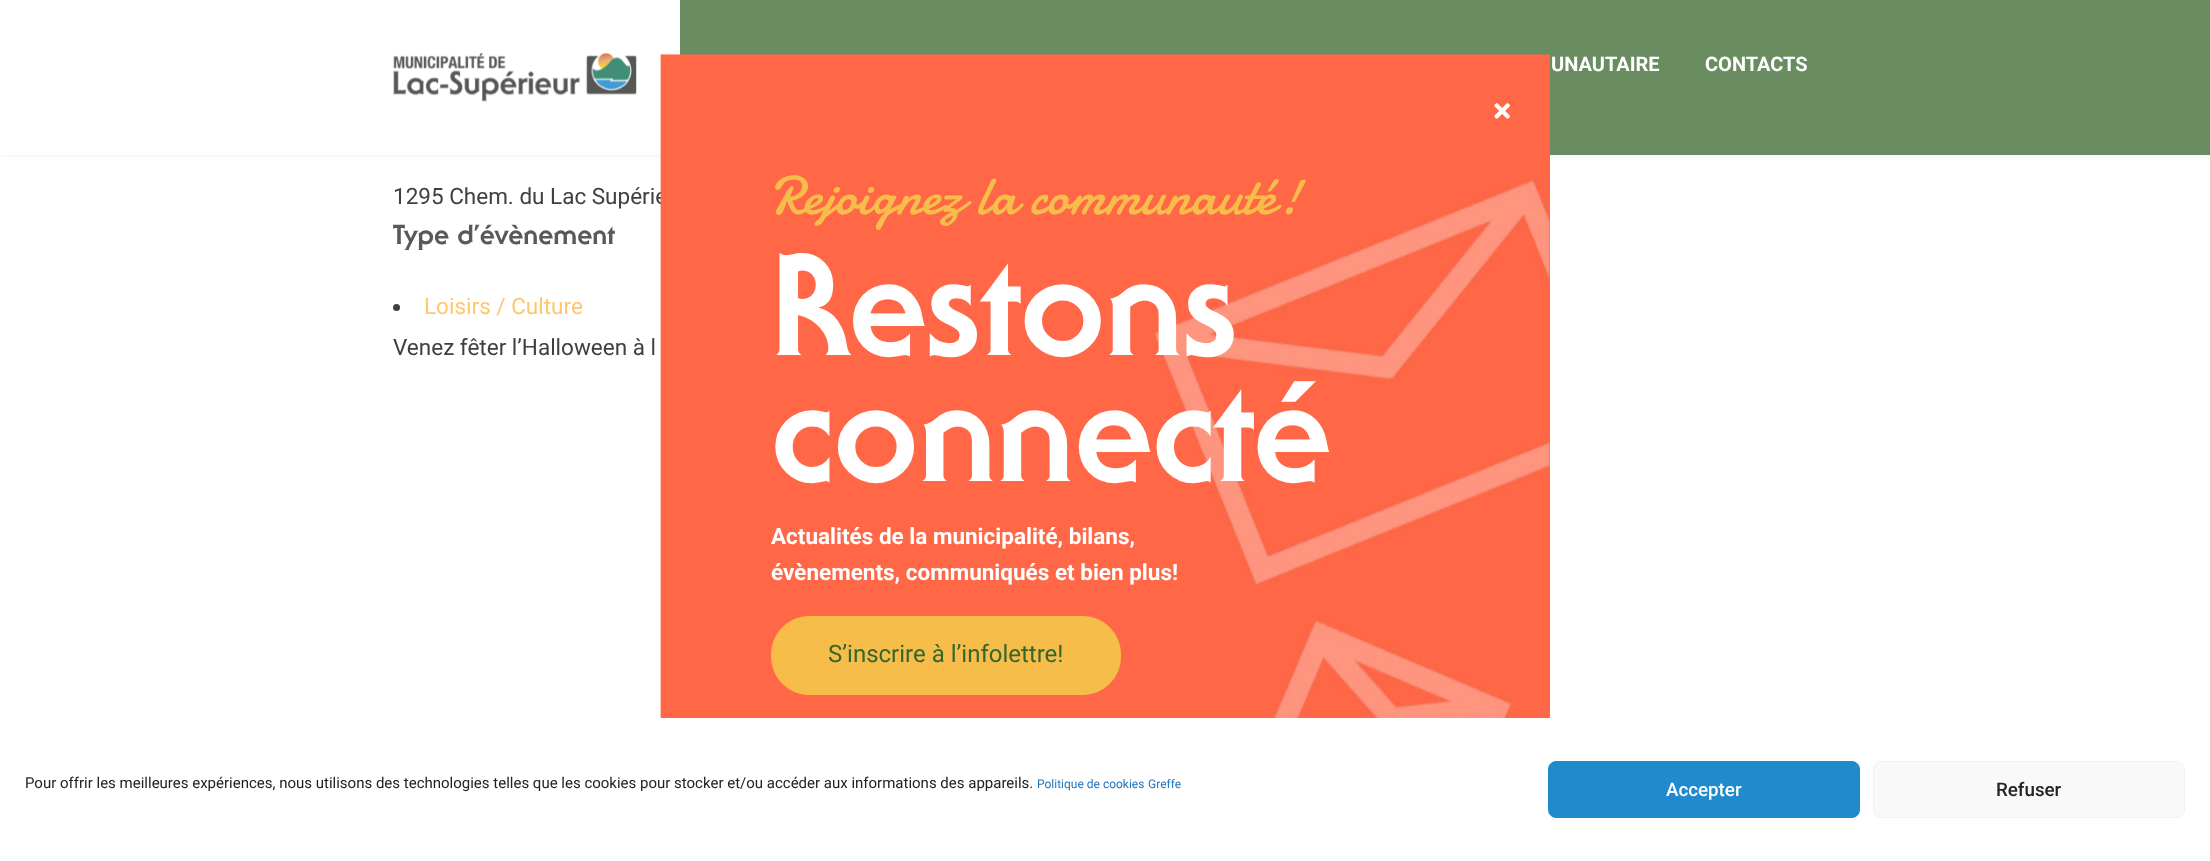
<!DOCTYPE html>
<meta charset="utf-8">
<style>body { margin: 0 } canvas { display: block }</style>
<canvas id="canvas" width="2210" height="861"></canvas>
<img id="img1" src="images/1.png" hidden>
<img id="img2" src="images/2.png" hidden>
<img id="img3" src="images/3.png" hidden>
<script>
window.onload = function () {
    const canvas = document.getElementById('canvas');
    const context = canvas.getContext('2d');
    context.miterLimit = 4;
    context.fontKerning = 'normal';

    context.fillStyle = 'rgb(255, 255, 255)';
    context.fillRect(0, 0, 2210, 861);
    context.fillStyle = 'rgba(64, 64, 64, 0.1)';
    context.filter = 'blur(2.5px)';
    context.beginPath();
    context.rect(0, 0, 2210, 155);
    context.fill();
    context.filter = 'none';
    context.fillStyle = 'rgb(105, 140, 97)';
    context.fillRect(680, 0, 1530, 155);
    context.fillStyle = 'rgb(255, 255, 255)';
    context.fillRect(0, 0, 680, 155);
    context.drawImage(document.getElementById('img1'), 392, 53, 245, 49);
    context.fillStyle = 'rgb(64, 64, 64)';
    context.beginPath();
    context.arc(396.5, 307.5, 3.5, 0, 2 * Math.PI);
    context.fill();
    context.fillStyle = 'rgb(255, 103, 71)';
    context.fillRect(1549, 55, 1, 663);
    context.fillStyle = 'rgb(33, 138, 204)';
    context.beginPath();
    context.roundRect(1548.5, 761.5, 311, 56, 7.5);
    context.fill();
    context.strokeStyle = 'rgb(33, 138, 204)';
    context.stroke();
    context.fillStyle = 'rgb(249, 249, 249)';
    context.beginPath();
    context.roundRect(1873.5, 761.5, 311, 56, 7.5);
    context.fill();
    context.strokeStyle = 'rgb(242, 242, 242)';
    context.stroke();
    context.font = 'bold 20px Roboto';
    context.fillStyle = 'rgb(255, 255, 255)';
    context.fillText('UNAUTAIRE', 1551, 71);
    context.fillText('CONTACTS', 1705, 71);
    context.font = '22.5px Roboto';
    context.fillStyle = 'rgb(64, 64, 64)';
    context.fillText('1295 Chem. du Lac Supérie', 393, 204);
    context.save();
    context.beginPath();
    context.rect(393, 0, 1425, 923);
    context.clip();
    context.font = '800 27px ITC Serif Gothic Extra';
    context.fillStyle = 'rgb(89, 89, 89)';
    context.fillText('Type d’évènement', 393, 244);
    context.restore();
    context.fillStyle = 'rgb(255, 199, 108)';
    context.fillText('Loisirs / Culture', 424, 314);
    context.fillStyle = 'rgb(64, 64, 64)';
    context.fillText('Venez fêter l’Halloween à l', 393, 355);
    context.drawImage(document.getElementById('img2'), 660, 53, 890, 665);
    context.drawImage(document.getElementById('img3'), 1494, 103, 16, 16);
    context.font = '55px Damion';
    context.fillStyle = 'rgb(247, 189, 74)';
    context.fillText('Rejoignez la communauté!', 771, 214);
    context.font = '800 140px ITC Serif Gothic Extra';
    context.fillStyle = 'rgb(255, 255, 255)';
    context.fillText('Restons', 771, 355);
    context.fillText('connecté', 771, 481);
    context.font = 'bold 22.5px Roboto';
    context.fillText('Actualités de la municipalité, bilans,', 771, 544);
    context.fillText('évènements, communiqués et bien plus!', 771, 580);
    context.fillStyle = 'rgb(247, 189, 74)';
    context.beginPath();
    context.roundRect(771.5, 616.5, 349, 78, 37.5);
    context.fill();
    context.strokeStyle = 'rgb(247, 189, 74)';
    context.stroke();
    context.font = '24px Roboto';
    context.fillStyle = 'rgb(55, 102, 44)';
    context.fillText('S’inscrire à l’infolettre!', 828, 662);
    context.font = '15px Roboto';
    context.fillStyle = 'rgb(34, 34, 34)';
    context.fillText('Pour offrir les meilleures expériences, nous utilisons des technologies telles que les cookies pour stocker et/ou accéder aux informations des appareils.', 25, 788);
    context.font = '12px Roboto';
    context.fillStyle = 'rgb(30, 115, 190)';
    context.fillText('Politique de cookies', 1037, 788);
    context.fillText('Greffe', 1148, 788);
    context.font = '500 18.75px Roboto';
    context.fillStyle = 'rgb(255, 255, 255)';
    context.fillText('Accepter', 1666, 796);
    context.fillStyle = 'rgb(34, 34, 34)';
    context.fillText('Refuser', 1996, 796);
};
</script>
